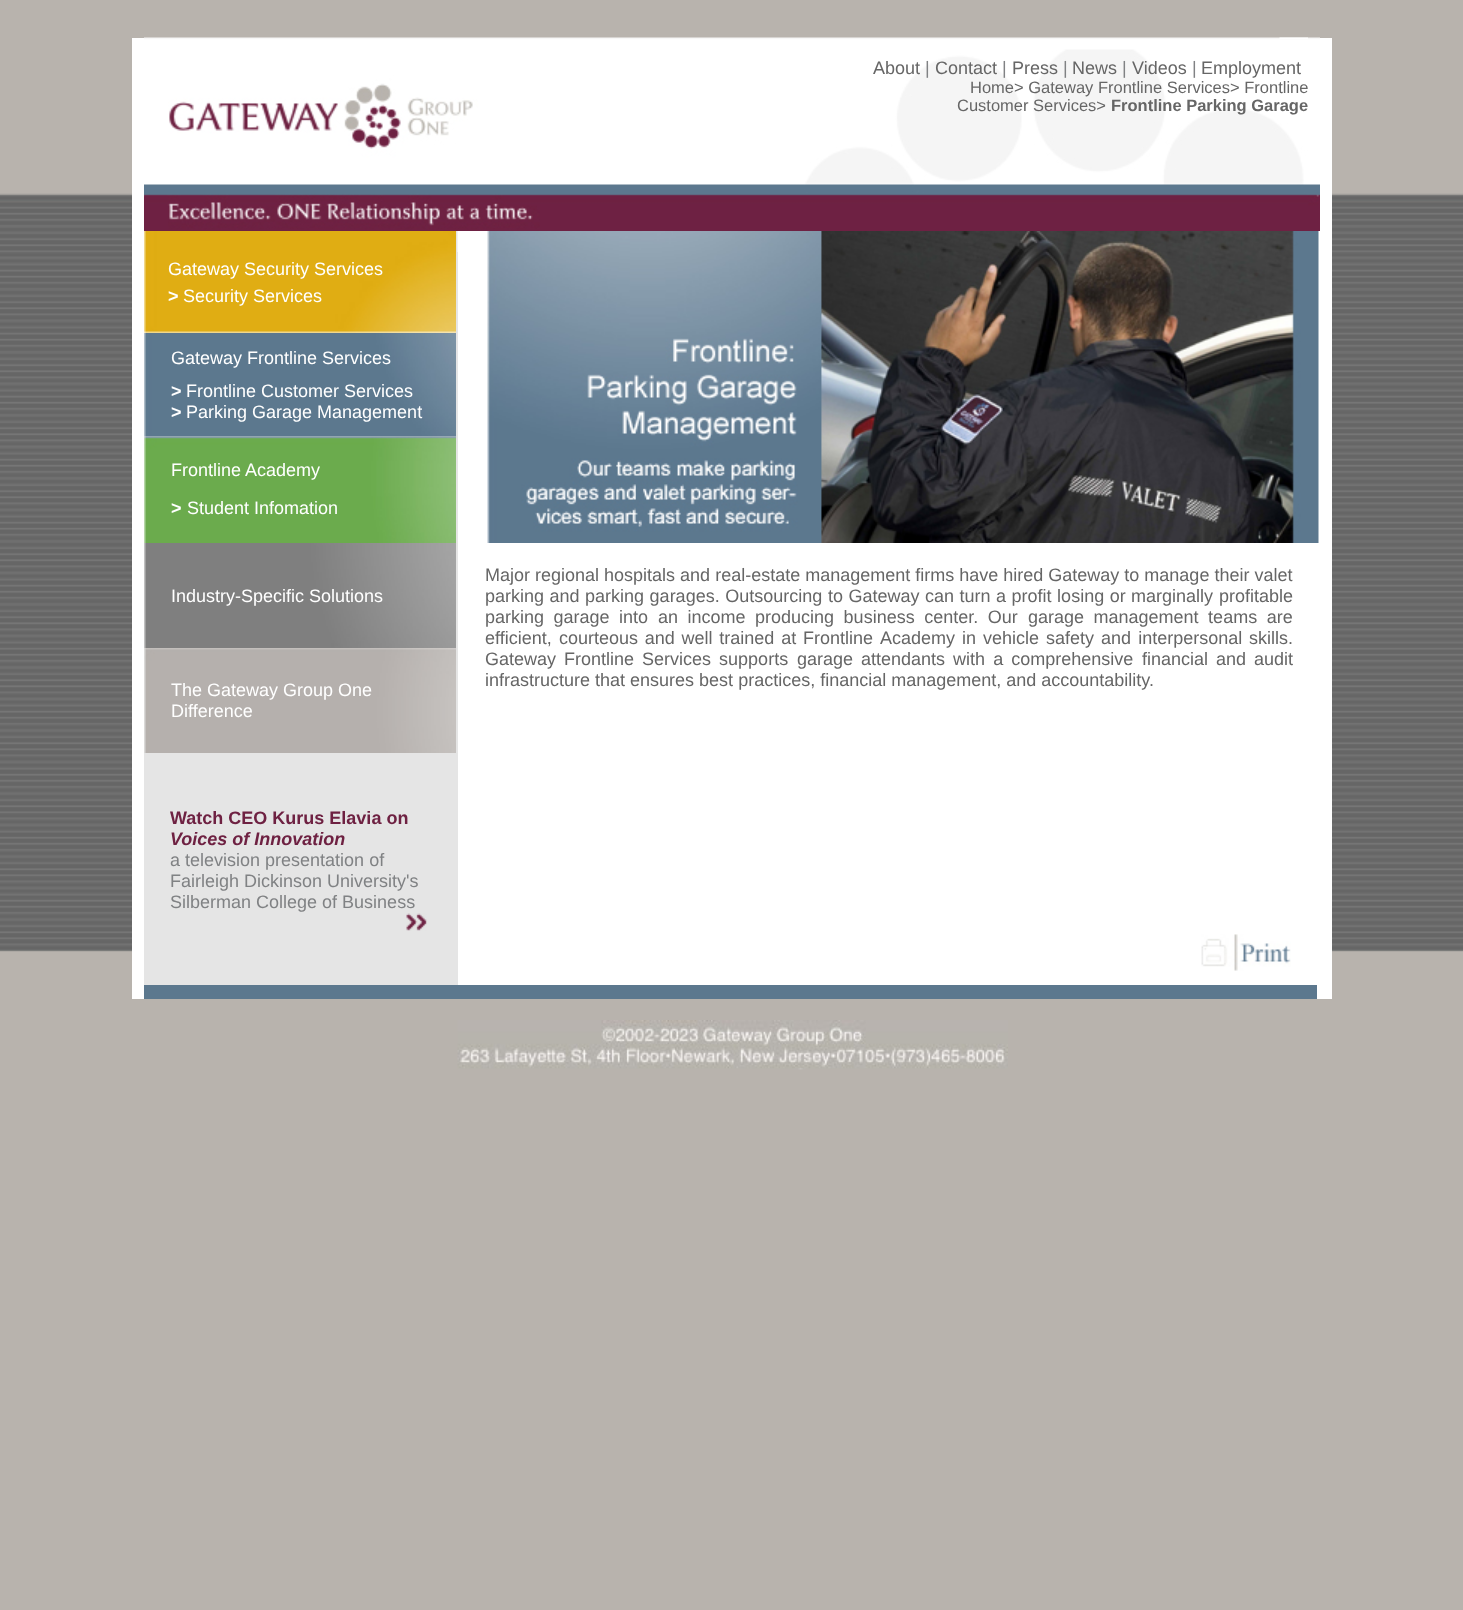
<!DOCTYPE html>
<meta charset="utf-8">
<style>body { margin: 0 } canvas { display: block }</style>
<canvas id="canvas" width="1463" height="1610"></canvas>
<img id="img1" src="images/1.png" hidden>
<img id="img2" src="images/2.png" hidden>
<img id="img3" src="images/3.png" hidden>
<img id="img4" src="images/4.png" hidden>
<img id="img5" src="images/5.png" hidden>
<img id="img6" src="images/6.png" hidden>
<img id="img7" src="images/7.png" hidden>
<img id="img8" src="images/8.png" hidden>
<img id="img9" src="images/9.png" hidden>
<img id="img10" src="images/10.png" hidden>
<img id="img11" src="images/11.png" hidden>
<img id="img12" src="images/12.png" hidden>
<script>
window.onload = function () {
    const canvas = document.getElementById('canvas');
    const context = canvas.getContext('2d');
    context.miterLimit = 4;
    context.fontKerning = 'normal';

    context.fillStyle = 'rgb(255, 255, 255)';
    context.fillRect(0, 0, 1463, 1610);
    context.drawImage(document.getElementById('img1'), 0, 0, 1463, 1610);
    context.fillRect(132, 38, 1200, 961);
    context.drawImage(document.getElementById('img2'), 144, 37, 1176, 194);
    context.drawImage(document.getElementById('img3'), 1279, 37, 29, 2);
    context.fillStyle = 'rgb(229, 229, 229)';
    context.fillRect(144, 231, 314, 754);
    context.fillStyle = 'rgb(242, 242, 242)';
    context.fillRect(457, 231, 1, 21);
    context.drawImage(document.getElementById('img4'), 144, 231, 312, 102);
    context.drawImage(document.getElementById('img5'), 144, 333, 312, 104);
    context.drawImage(document.getElementById('img6'), 144, 436, 312, 107);
    context.drawImage(document.getElementById('img7'), 144, 543, 312, 105);
    context.drawImage(document.getElementById('img8'), 144, 648, 312, 105);
    context.drawImage(document.getElementById('img9'), 406, 913, 21, 18);
    context.drawImage(document.getElementById('img10'), 487, 231, 832, 312);
    context.drawImage(document.getElementById('img11'), 1201, 934, 90, 37);
    context.fillStyle = 'rgb(92, 120, 142)';
    context.fillRect(144, 985, 1173, 14);
    context.drawImage(document.getElementById('img12'), 457, 1020, 551, 50);
    context.font = '18px Liberation Sans';
    context.fillStyle = 'rgb(102, 102, 102)';
    context.fillText('About', 873, 74);
    context.fillStyle = 'rgb(128, 130, 132)';
    context.fillText('|', 925, 74);
    context.fillStyle = 'rgb(102, 102, 102)';
    context.fillText('Contact', 935, 74);
    context.fillStyle = 'rgb(128, 130, 132)';
    context.fillText('|', 1002, 74);
    context.fillStyle = 'rgb(102, 102, 102)';
    context.fillText('Press', 1012, 74);
    context.fillStyle = 'rgb(128, 130, 132)';
    context.fillText('|', 1063, 74);
    context.fillStyle = 'rgb(102, 102, 102)';
    context.fillText('News', 1072, 74);
    context.fillStyle = 'rgb(128, 130, 132)';
    context.fillText('|', 1122, 74);
    context.fillStyle = 'rgb(102, 102, 102)';
    context.fillText('Videos', 1132, 74);
    context.fillStyle = 'rgb(128, 130, 132)';
    context.fillText('|', 1192, 74);
    context.fillStyle = 'rgb(102, 102, 102)';
    context.fillText('Employment', 1201, 74);
    context.font = '16.5px Liberation Sans';
    context.fillText('Home> Gateway Frontline Services> Frontline', 970, 93);
    context.fillText('Customer Services>', 957, 111);
    context.font = 'bold 16.5px Liberation Sans';
    context.fillText('Frontline Parking Garage', 1111, 111);
    context.font = '18px Liberation Sans';
    context.fillStyle = 'rgb(255, 255, 255)';
    context.fillText('Gateway Security Services', 168, 275);
    context.font = 'bold 18px Liberation Sans';
    context.fillText('>', 168, 302);
    context.font = '18px Liberation Sans';
    context.fillText('Security Services', 183, 302);
    context.fillText('Gateway Frontline Services', 171, 364);
    context.font = 'bold 18px Liberation Sans';
    context.fillText('>', 171, 397);
    context.font = '18px Liberation Sans';
    context.fillText('Frontline Customer Services', 186, 397);
    context.font = 'bold 18px Liberation Sans';
    context.fillText('>', 171, 418);
    context.font = '18px Liberation Sans';
    context.fillText('Parking Garage Management', 186, 418);
    context.fillText('Frontline', 171, 476);
    context.fillText('Academy', 245, 476);
    context.font = 'bold 18px Liberation Sans';
    context.fillText('>', 171, 514);
    context.font = '18px Liberation Sans';
    context.fillText('Student Infomation', 187, 514);
    context.fillText('Industry-Specific Solutions', 171, 602);
    context.fillText('The Gateway Group One', 171, 696);
    context.fillText('Difference', 171, 717);
    context.font = 'bold 18px Liberation Sans';
    context.fillStyle = 'rgb(110, 33, 66)';
    context.fillText('Watch CEO Kurus Elavia on', 170, 824);
    context.font = 'italic bold 18px Liberation Sans';
    context.fillText('Voices of Innovation', 170, 845);
    context.font = '18px Liberation Sans';
    context.fillStyle = 'rgb(128, 130, 132)';
    context.fillText('a television presentation of', 170, 866);
    context.fillText('Fairleigh Dickinson University\'s', 170, 887);
    context.fillText('Silberman College of Business', 170, 908);
    context.fillStyle = 'rgb(102, 102, 102)';
    context.fillText('Major regional hospitals and real-estate management firms have hired Gateway to manage their valet', 485, 581);
    context.wordSpacing = '0.5px';
    context.fillText('parking and parking garages. Outsourcing', 485, 602);
    context.fillText('to Gateway can turn a profit losing or', 828, 602);
    context.wordSpacing = '1px';
    context.fillText('marginally profitable', 1131, 602);
    context.wordSpacing = '4.5px';
    context.fillText('parking garage into', 485, 623);
    context.fillText('an income producing business center. Our', 658, 623);
    context.fillText('garage management teams are', 1028, 623);
    context.wordSpacing = '0px';
    context.fillText('efficient,', 485, 644);
    context.wordSpacing = '1.75px';
    context.fillText('courteous and well trained at Frontline', 559, 644);
    context.wordSpacing = '2px';
    context.fillText('Academy in vehicle safety and interpersonal', 880, 644);
    context.wordSpacing = '0px';
    context.fillText('skills.', 1249, 644);
    context.wordSpacing = '3px';
    context.fillText('Gateway Frontline Services supports', 485, 665);
    context.fillText('garage attendants with a comprehensive', 797, 665);
    context.fillText('financial and audit', 1142, 665);
    context.wordSpacing = '0px';
    context.fillText('infrastructure that ensures best practices, financial management, and accountability.', 485, 686);
};
</script>
